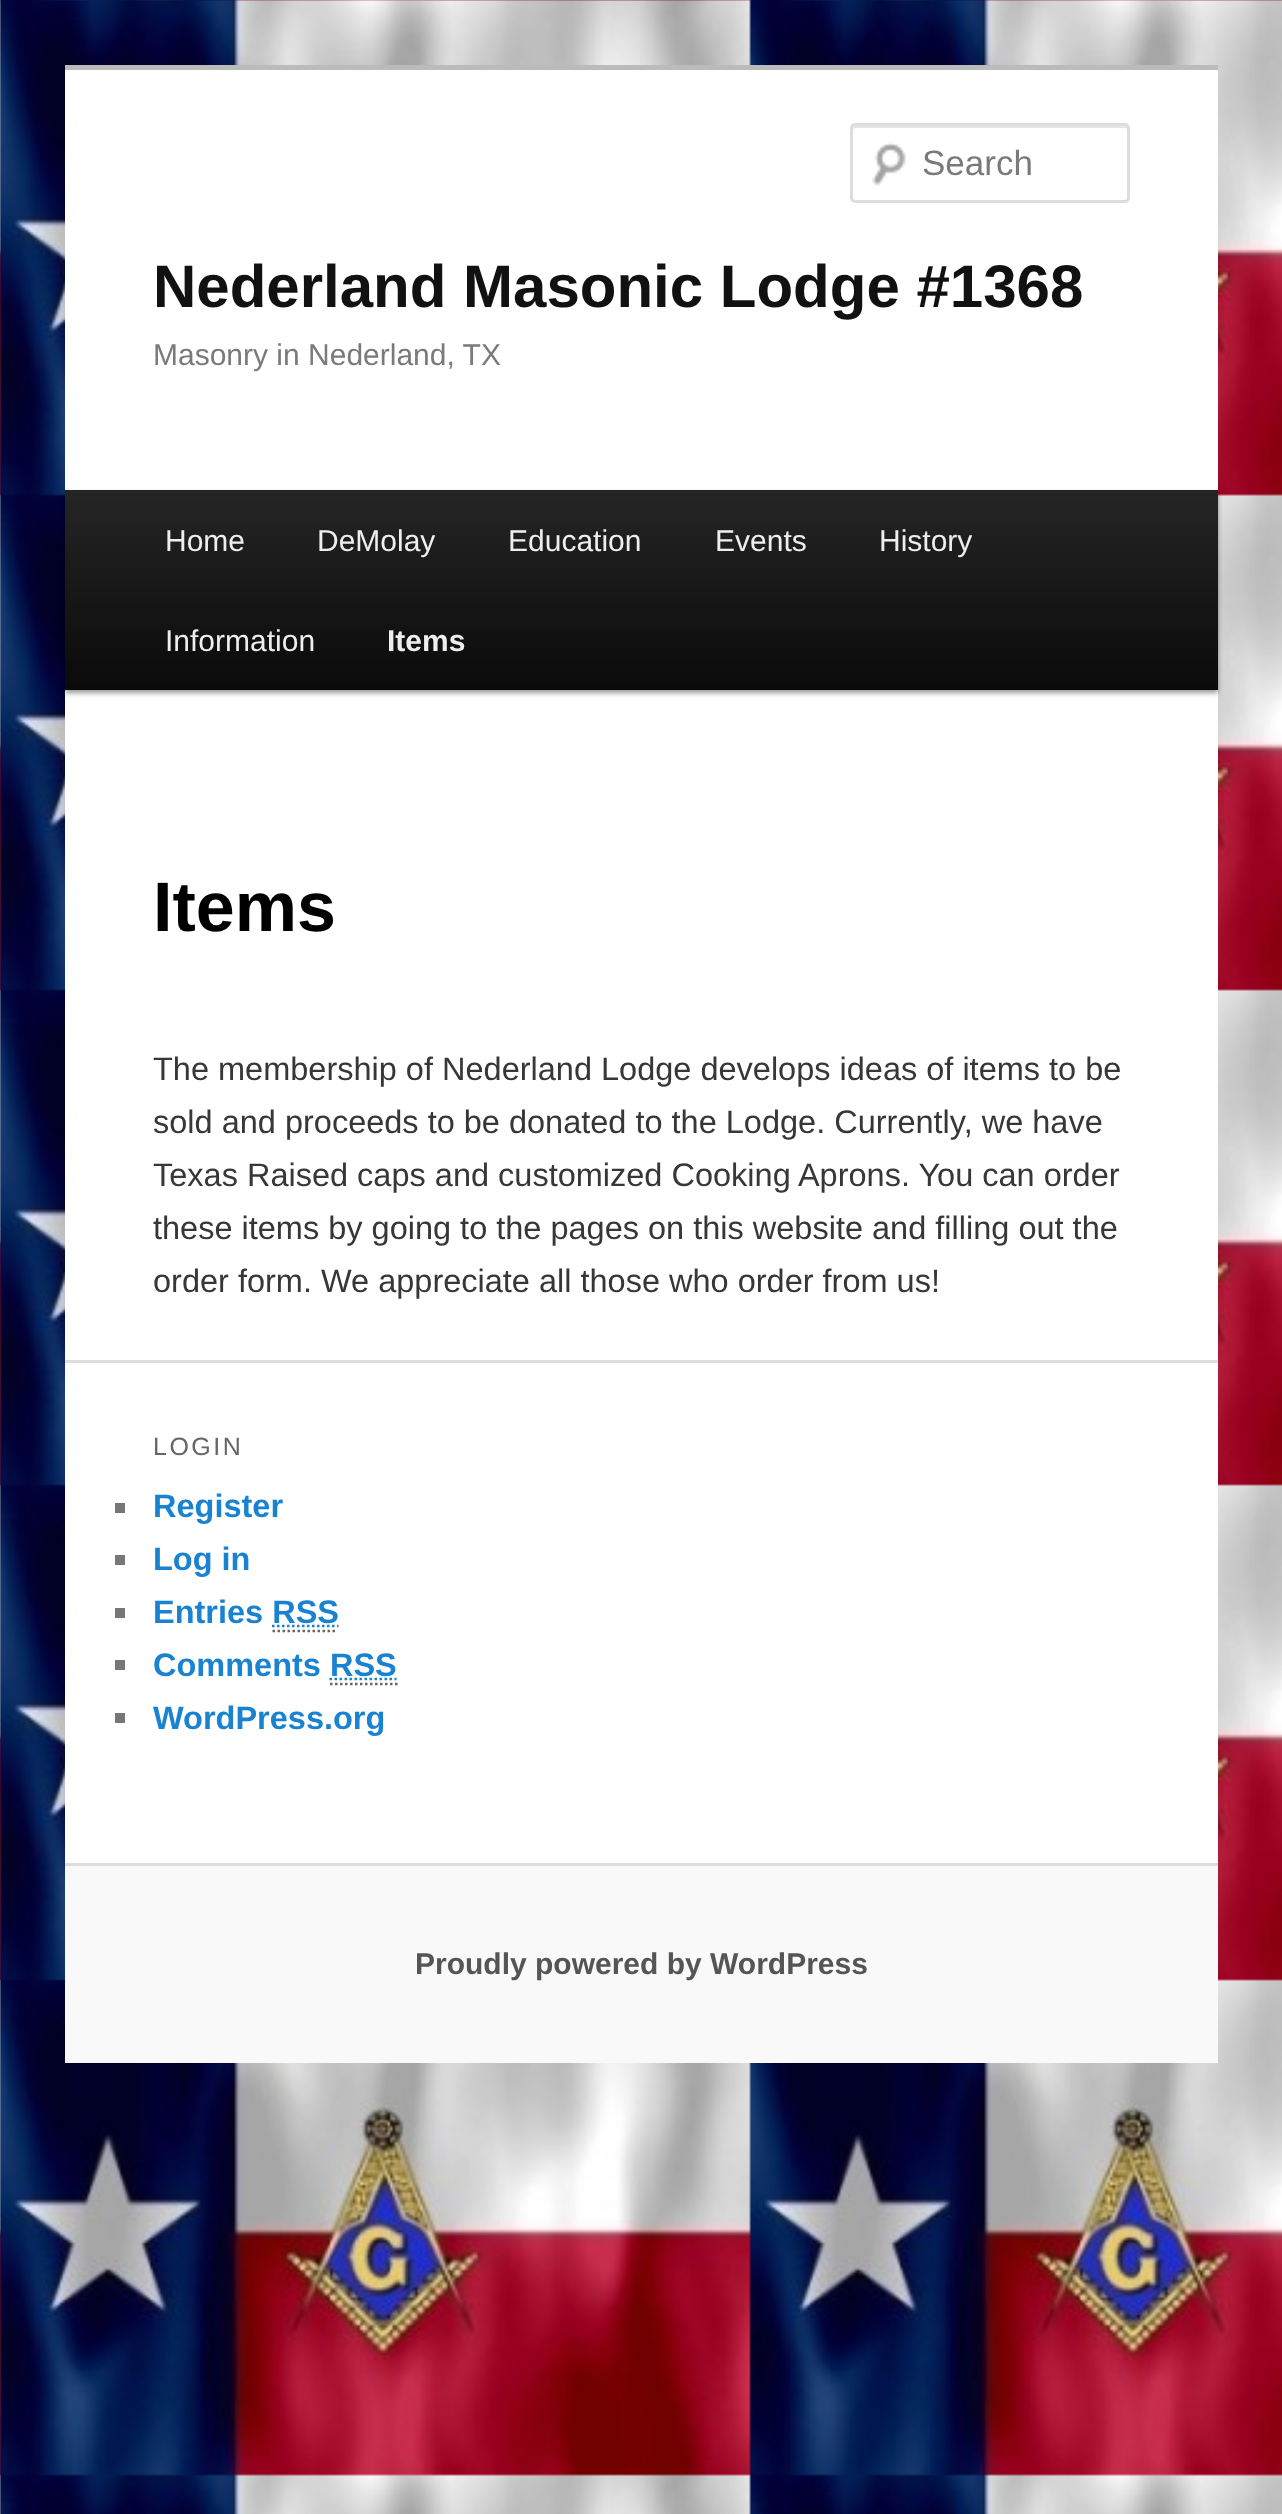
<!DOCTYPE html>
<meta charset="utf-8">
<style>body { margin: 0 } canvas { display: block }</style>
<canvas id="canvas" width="1282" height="2514"></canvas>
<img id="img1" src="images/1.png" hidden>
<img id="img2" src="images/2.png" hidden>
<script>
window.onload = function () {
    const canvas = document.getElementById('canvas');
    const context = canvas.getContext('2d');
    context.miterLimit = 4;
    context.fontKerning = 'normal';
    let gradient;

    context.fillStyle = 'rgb(255, 255, 255)';
    context.fillRect(0, 0, 1282, 2514);
    context.drawImage(document.getElementById('img1'), 0, 0, 1282, 2514);
    context.fillRect(65, 70, 1153, 1793);
    context.fillStyle = 'rgb(187, 187, 187)';
    context.fillRect(65, 65, 1153, 5);
    context.drawImage(document.getElementById('img2'), 872, 142, 34, 44);
    context.fillStyle = 'rgb(230, 230, 230)';
    context.beginPath();
    context.moveTo(855, 128);
    context.lineTo(1125, 128);
    context.bezierCurveTo(1126, 128, 1128, 129, 1128, 130);
    context.bezierCurveTo(1128, 128, 1128, 126, 1126, 125);
    context.lineTo(856, 125);
    context.bezierCurveTo(853, 125, 853, 127, 853, 129);
    context.closePath();
    context.fill();
    context.beginPath();
    context.roundRect(851.5, 124.5, 277, 77, 3.5);
    context.strokeStyle = 'rgb(221, 221, 221)';
    context.lineWidth = 3;
    context.stroke();
    context.fillStyle = 'rgba(0, 0, 0, 0.4)';
    context.filter = 'blur(2.5px)';
    context.beginPath();
    context.rect(65, 493, 1153, 200);
    context.fill();
    context.filter = 'none';
    gradient = context.createLinearGradient(641, 490, 641, 690);
    gradient.addColorStop(0, 'rgb(37, 37, 37)');
    gradient.addColorStop(1, 'rgb(10, 10, 10)');
    context.fillStyle = gradient;
    context.fillRect(65, 490, 1153, 200);
    context.fillStyle = 'rgb(221, 221, 221)';
    context.fillRect(65, 1360, 1153, 3);
    context.fillStyle = 'rgb(119, 119, 119)';
    context.fillRect(115, 1503, 10, 10);
    context.fillRect(115, 1555, 10, 10);
    context.fillRect(115, 1608, 10, 10);
    context.beginPath();
    context.moveTo(272.5, 1631);
    context.lineTo(337.5, 1631);
    context.strokeStyle = 'rgb(102, 102, 102)';
    context.lineWidth = 2.5;
    context.setLineDash([2.5, 2.5]);
    context.stroke();
    context.beginPath();
    context.moveTo(272, 1626);
    context.lineTo(338.5, 1626);
    context.strokeStyle = 'rgb(25, 130, 209)';
    context.stroke();
    context.fillRect(115, 1660, 10, 10);
    context.beginPath();
    context.moveTo(330, 1684);
    context.lineTo(397.5, 1684);
    context.strokeStyle = 'rgb(102, 102, 102)';
    context.stroke();
    context.beginPath();
    context.moveTo(329.5, 1679);
    context.lineTo(396.5, 1679);
    context.strokeStyle = 'rgb(25, 130, 209)';
    context.stroke();
    context.fillRect(115, 1713, 10, 10);
    context.fillStyle = 'rgb(249, 249, 249)';
    context.fillRect(65, 1866, 1153, 197);
    context.fillStyle = 'rgb(221, 221, 221)';
    context.fillRect(65, 1863, 1153, 3);
    context.font = '35px Liberation Sans';
    context.fillStyle = 'rgb(122, 122, 122)';
    context.fillText('Search', 922, 175);
    context.font = 'bold 60px Liberation Sans';
    context.fillStyle = 'rgb(17, 17, 17)';
    context.fillText('Nederland Masonic Lodge #1368', 153, 307);
    context.font = '30px Liberation Sans';
    context.fillStyle = 'rgb(122, 122, 122)';
    context.fillText('Masonry in Nederland, TX', 153, 365);
    context.fillStyle = 'rgb(238, 238, 238)';
    context.fillText('Home', 165, 551);
    context.fillText('DeMolay', 317, 551);
    context.fillText('Education', 508, 551);
    context.fillText('Events', 715, 551);
    context.fillText('History', 879, 551);
    context.fillText('Information', 165, 651);
    context.font = 'bold 30px Liberation Sans';
    context.fillText('Items', 387, 651);
    context.font = 'bold 70px Liberation Sans';
    context.fillStyle = 'rgb(0, 0, 0)';
    context.fillText('Items', 153, 931);
    context.font = '32.5px Liberation Sans';
    context.fillStyle = 'rgb(55, 55, 55)';
    context.fillText('The membership of Nederland Lodge develops ideas of items to be', 153, 1080);
    context.fillText('sold and proceeds to be donated to the Lodge. Currently, we have', 153, 1133);
    context.fillText('Texas Raised caps and customized Cooking Aprons. You can order', 153, 1186);
    context.fillText('these items by going to the pages on this website and filling out the', 153, 1239);
    context.fillText('order form. We appreciate all those who order from us!', 153, 1292);
    context.letterSpacing = '2.5px';
    context.font = '25px Liberation Sans';
    context.fillStyle = 'rgb(102, 102, 102)';
    context.fillText('LOGIN', 153, 1455);
    context.letterSpacing = '0px';
    context.font = 'bold 32.5px Liberation Sans';
    context.fillStyle = 'rgb(25, 130, 209)';
    context.fillText('Register', 153, 1517);
    context.fillText('Log in', 153, 1570);
    context.fillText('Entries RSS', 153, 1623);
    context.fillText('Comments RSS', 153, 1676);
    context.fillText('WordPress.org', 153, 1729);
    context.font = 'bold 30px Liberation Sans';
    context.fillStyle = 'rgb(85, 85, 85)';
    context.fillText('Proudly powered by WordPress', 415, 1974);
};
</script>
